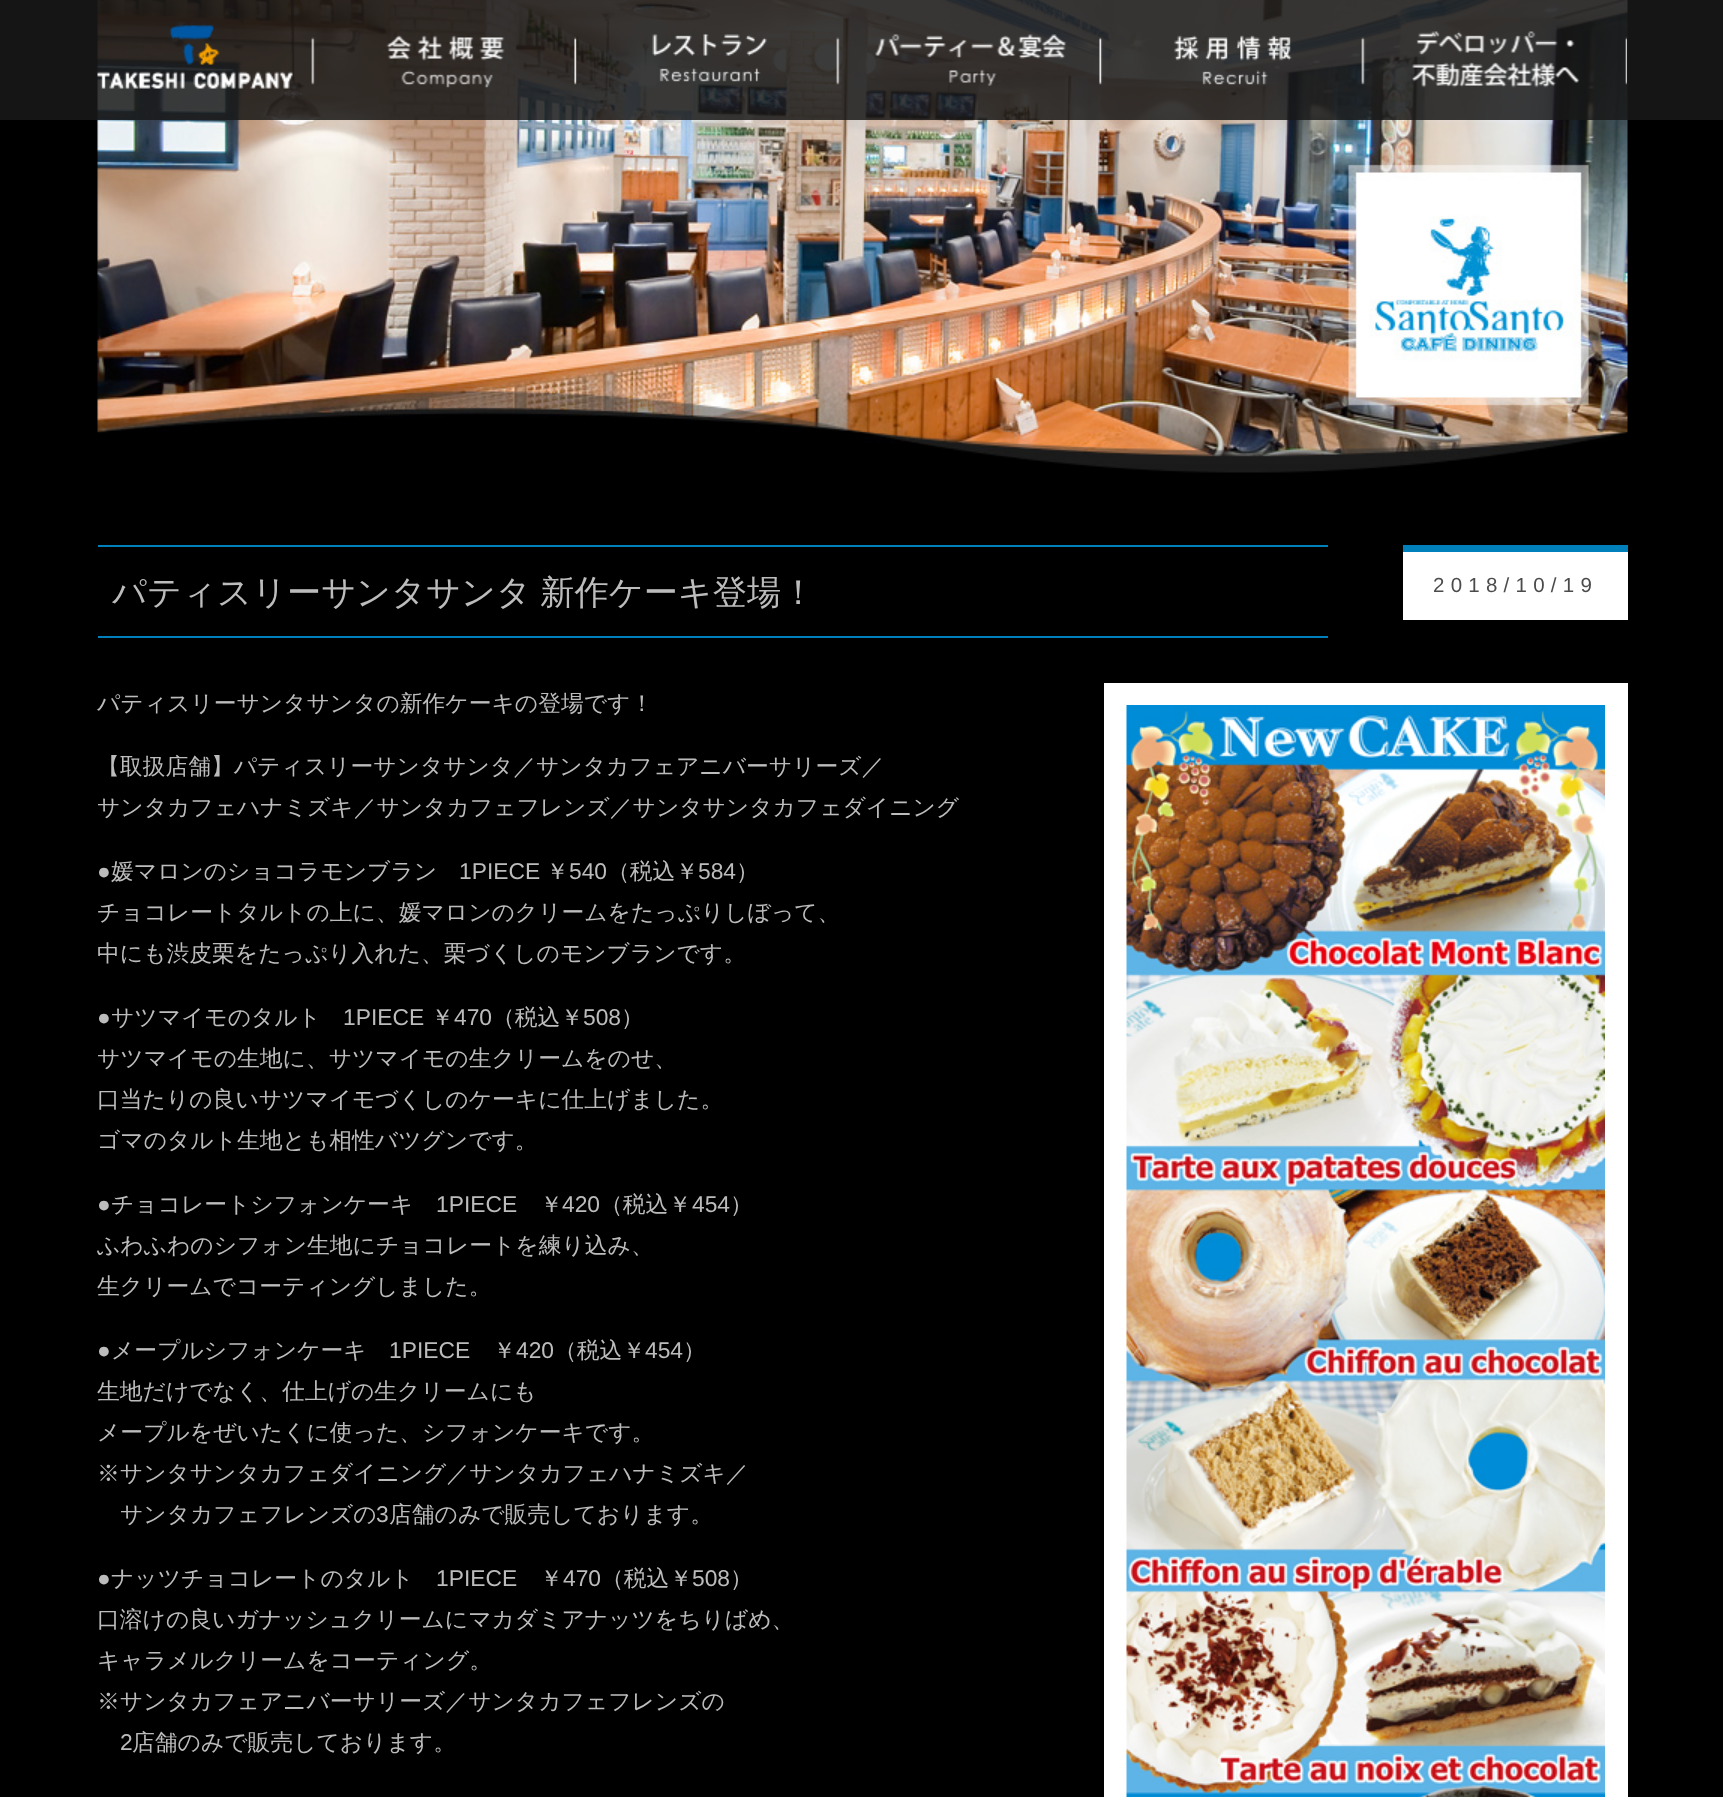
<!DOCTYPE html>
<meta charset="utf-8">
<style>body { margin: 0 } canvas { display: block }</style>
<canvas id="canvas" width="1723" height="1797"></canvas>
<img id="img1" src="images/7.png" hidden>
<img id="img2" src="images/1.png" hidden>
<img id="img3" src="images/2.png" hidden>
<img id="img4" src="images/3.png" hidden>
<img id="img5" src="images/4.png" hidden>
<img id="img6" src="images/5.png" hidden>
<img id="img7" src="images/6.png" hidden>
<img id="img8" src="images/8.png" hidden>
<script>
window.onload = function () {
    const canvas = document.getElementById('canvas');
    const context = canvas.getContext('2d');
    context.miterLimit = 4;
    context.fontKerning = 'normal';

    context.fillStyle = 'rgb(0, 0, 0)';
    context.fillRect(0, 0, 1723, 1797);
    context.drawImage(document.getElementById('img1'), 97, 0, 1531, 473);
    context.fillStyle = 'rgba(25, 25, 25, 0.85)';
    context.fillRect(0, 0, 1723, 120);
    context.drawImage(document.getElementById('img2'), 97, 25, 196, 64);
    context.drawImage(document.getElementById('img3'), 311, 35, 194, 53);
    context.drawImage(document.getElementById('img4'), 574, 33, 193, 52);
    context.drawImage(document.getElementById('img5'), 836, 34, 231, 53);
    context.drawImage(document.getElementById('img6'), 1099, 35, 193, 50);
    context.drawImage(document.getElementById('img7'), 1361, 31, 266, 57);
    context.fillStyle = 'rgb(0, 128, 187)';
    context.fillRect(98, 545, 1230, 2);
    context.fillRect(98, 636, 1230, 2);
    context.fillStyle = 'rgb(255, 255, 255)';
    context.fillRect(1403, 552, 225, 68);
    context.fillStyle = 'rgb(0, 128, 187)';
    context.fillRect(1403, 545, 225, 7);
    context.fillStyle = 'rgb(255, 255, 255)';
    context.fillRect(1104, 683, 524, 1114);
    context.drawImage(document.getElementById('img8'), 1126, 705, 479, 1092);
    context.wordSpacing = '-1px';
    context.font = '500 34.2px WenQuanYi Zen Hei';
    context.fillStyle = 'rgb(188, 188, 188)';
    context.fillText('パティスリーサンタサンタ 新作ケーキ登場！', 112, 604);
    context.letterSpacing = '6.25px';
    context.wordSpacing = '0px';
    context.font = '20.5px Liberation Sans';
    context.fillStyle = 'rgb(75, 75, 75)';
    context.fillText('2018/10/19', 1433, 592);
    context.letterSpacing = '0px';
    context.font = '500 22.8px WenQuanYi Zen Hei';
    context.fillStyle = 'rgb(188, 188, 188)';
    context.fillText('パティスリーサンタサンタの新作ケーキの登場です！', 97, 711);
    context.fillText('【取扱店舗】パティスリーサンタサンタ／サンタカフェアニバーサリーズ／', 97, 774);
    context.fillText('サンタカフェハナミズキ／サンタカフェフレンズ／サンタサンタカフェダイニング', 97, 815);
    context.font = '22.8px Liberation Sans';
    context.fillText('●', 97, 879);
    context.font = '500 22.8px WenQuanYi Zen Hei';
    context.fillText('媛マロンのショコラモンブラン', 111, 879);
    context.font = '22.8px Liberation Sans';
    context.fillText('1PIECE', 459, 879);
    context.font = '500 22.8px WenQuanYi Zen Hei';
    context.fillText('￥', 546, 879);
    context.font = '22.8px Liberation Sans';
    context.fillText('540', 569, 879);
    context.font = '500 22.8px WenQuanYi Zen Hei';
    context.fillText('（税込￥', 607, 879);
    context.font = '22.8px Liberation Sans';
    context.fillText('584', 698, 879);
    context.font = '500 22.8px WenQuanYi Zen Hei';
    context.fillText('）', 736, 879);
    context.fillText('チョコレートタルトの上に、媛マロンのクリームをたっぷりしぼって、', 97, 920);
    context.fillText('中にも渋皮栗をたっぷり入れた、栗づくしのモンブランです。', 97, 961);
    context.font = '22.8px Liberation Sans';
    context.fillText('●', 97, 1025);
    context.font = '500 22.8px WenQuanYi Zen Hei';
    context.fillText('サツマイモのタルト', 111, 1025);
    context.font = '22.8px Liberation Sans';
    context.fillText('1PIECE', 343, 1025);
    context.font = '500 22.8px WenQuanYi Zen Hei';
    context.fillText('￥', 431, 1025);
    context.font = '22.8px Liberation Sans';
    context.fillText('470', 454, 1025);
    context.font = '500 22.8px WenQuanYi Zen Hei';
    context.fillText('（税込￥', 492, 1025);
    context.font = '22.8px Liberation Sans';
    context.fillText('508', 583, 1025);
    context.font = '500 22.8px WenQuanYi Zen Hei';
    context.fillText('）', 621, 1025);
    context.fillText('サツマイモの生地に、サツマイモの生クリームをのせ、', 97, 1066);
    context.fillText('口当たりの良いサツマイモづくしのケーキに仕上げました。', 97, 1107);
    context.fillText('ゴマのタルト生地とも相性バツグンです。', 97, 1148);
    context.font = '22.8px Liberation Sans';
    context.fillText('●', 97, 1212);
    context.font = '500 22.8px WenQuanYi Zen Hei';
    context.fillText('チョコレートシフォンケーキ', 111, 1212);
    context.font = '22.8px Liberation Sans';
    context.fillText('1PIECE', 436, 1212);
    context.font = '500 22.8px WenQuanYi Zen Hei';
    context.fillText('￥', 540, 1212);
    context.font = '22.8px Liberation Sans';
    context.fillText('420', 562, 1212);
    context.font = '500 22.8px WenQuanYi Zen Hei';
    context.fillText('（税込￥', 600, 1212);
    context.font = '22.8px Liberation Sans';
    context.fillText('454', 692, 1212);
    context.font = '500 22.8px WenQuanYi Zen Hei';
    context.fillText('）', 730, 1212);
    context.fillText('ふわふわのシフォン生地にチョコレートを練り込み、', 97, 1253);
    context.fillText('生クリームでコーティングしました。', 97, 1294);
    context.font = '22.8px Liberation Sans';
    context.fillText('●', 97, 1358);
    context.font = '500 22.8px WenQuanYi Zen Hei';
    context.fillText('メープルシフォンケーキ', 111, 1358);
    context.font = '22.8px Liberation Sans';
    context.fillText('1PIECE', 389, 1358);
    context.font = '500 22.8px WenQuanYi Zen Hei';
    context.fillText('￥', 493, 1358);
    context.font = '22.8px Liberation Sans';
    context.fillText('420', 516, 1358);
    context.font = '500 22.8px WenQuanYi Zen Hei';
    context.fillText('（税込￥', 554, 1358);
    context.font = '22.8px Liberation Sans';
    context.fillText('454', 645, 1358);
    context.font = '500 22.8px WenQuanYi Zen Hei';
    context.fillText('）', 683, 1358);
    context.fillText('生地だけでなく、仕上げの生クリームにも', 97, 1399);
    context.fillText('メープルをぜいたくに使った、シフォンケーキです。', 97, 1440);
    context.fillText('※サンタサンタカフェダイニング／サンタカフェハナミズキ／', 97, 1481);
    context.fillText('サンタカフェフレンズの', 120, 1522);
    context.font = '22.8px Liberation Sans';
    context.fillText('3', 376, 1522);
    context.font = '500 22.8px WenQuanYi Zen Hei';
    context.fillText('店舗のみで販売しております。', 389, 1522);
    context.font = '22.8px Liberation Sans';
    context.fillText('●', 97, 1586);
    context.font = '500 22.8px WenQuanYi Zen Hei';
    context.fillText('ナッツチョコレートのタルト', 111, 1586);
    context.font = '22.8px Liberation Sans';
    context.fillText('1PIECE', 436, 1586);
    context.font = '500 22.8px WenQuanYi Zen Hei';
    context.fillText('￥', 540, 1586);
    context.font = '22.8px Liberation Sans';
    context.fillText('470', 563, 1586);
    context.font = '500 22.8px WenQuanYi Zen Hei';
    context.fillText('（税込￥', 601, 1586);
    context.font = '22.8px Liberation Sans';
    context.fillText('508', 692, 1586);
    context.font = '500 22.8px WenQuanYi Zen Hei';
    context.fillText('）', 730, 1586);
    context.fillText('口溶けの良いガナッシュクリームにマカダミアナッツをちりばめ、', 97, 1627);
    context.fillText('キャラメルクリームをコーティング。', 97, 1668);
    context.fillText('※サンタカフェアニバーサリーズ／サンタカフェフレンズの', 97, 1709);
    context.font = '22.8px Liberation Sans';
    context.fillText('2', 120, 1750);
    context.font = '500 22.8px WenQuanYi Zen Hei';
    context.fillText('店舗のみで販売しております。', 132, 1750);
};
</script>
